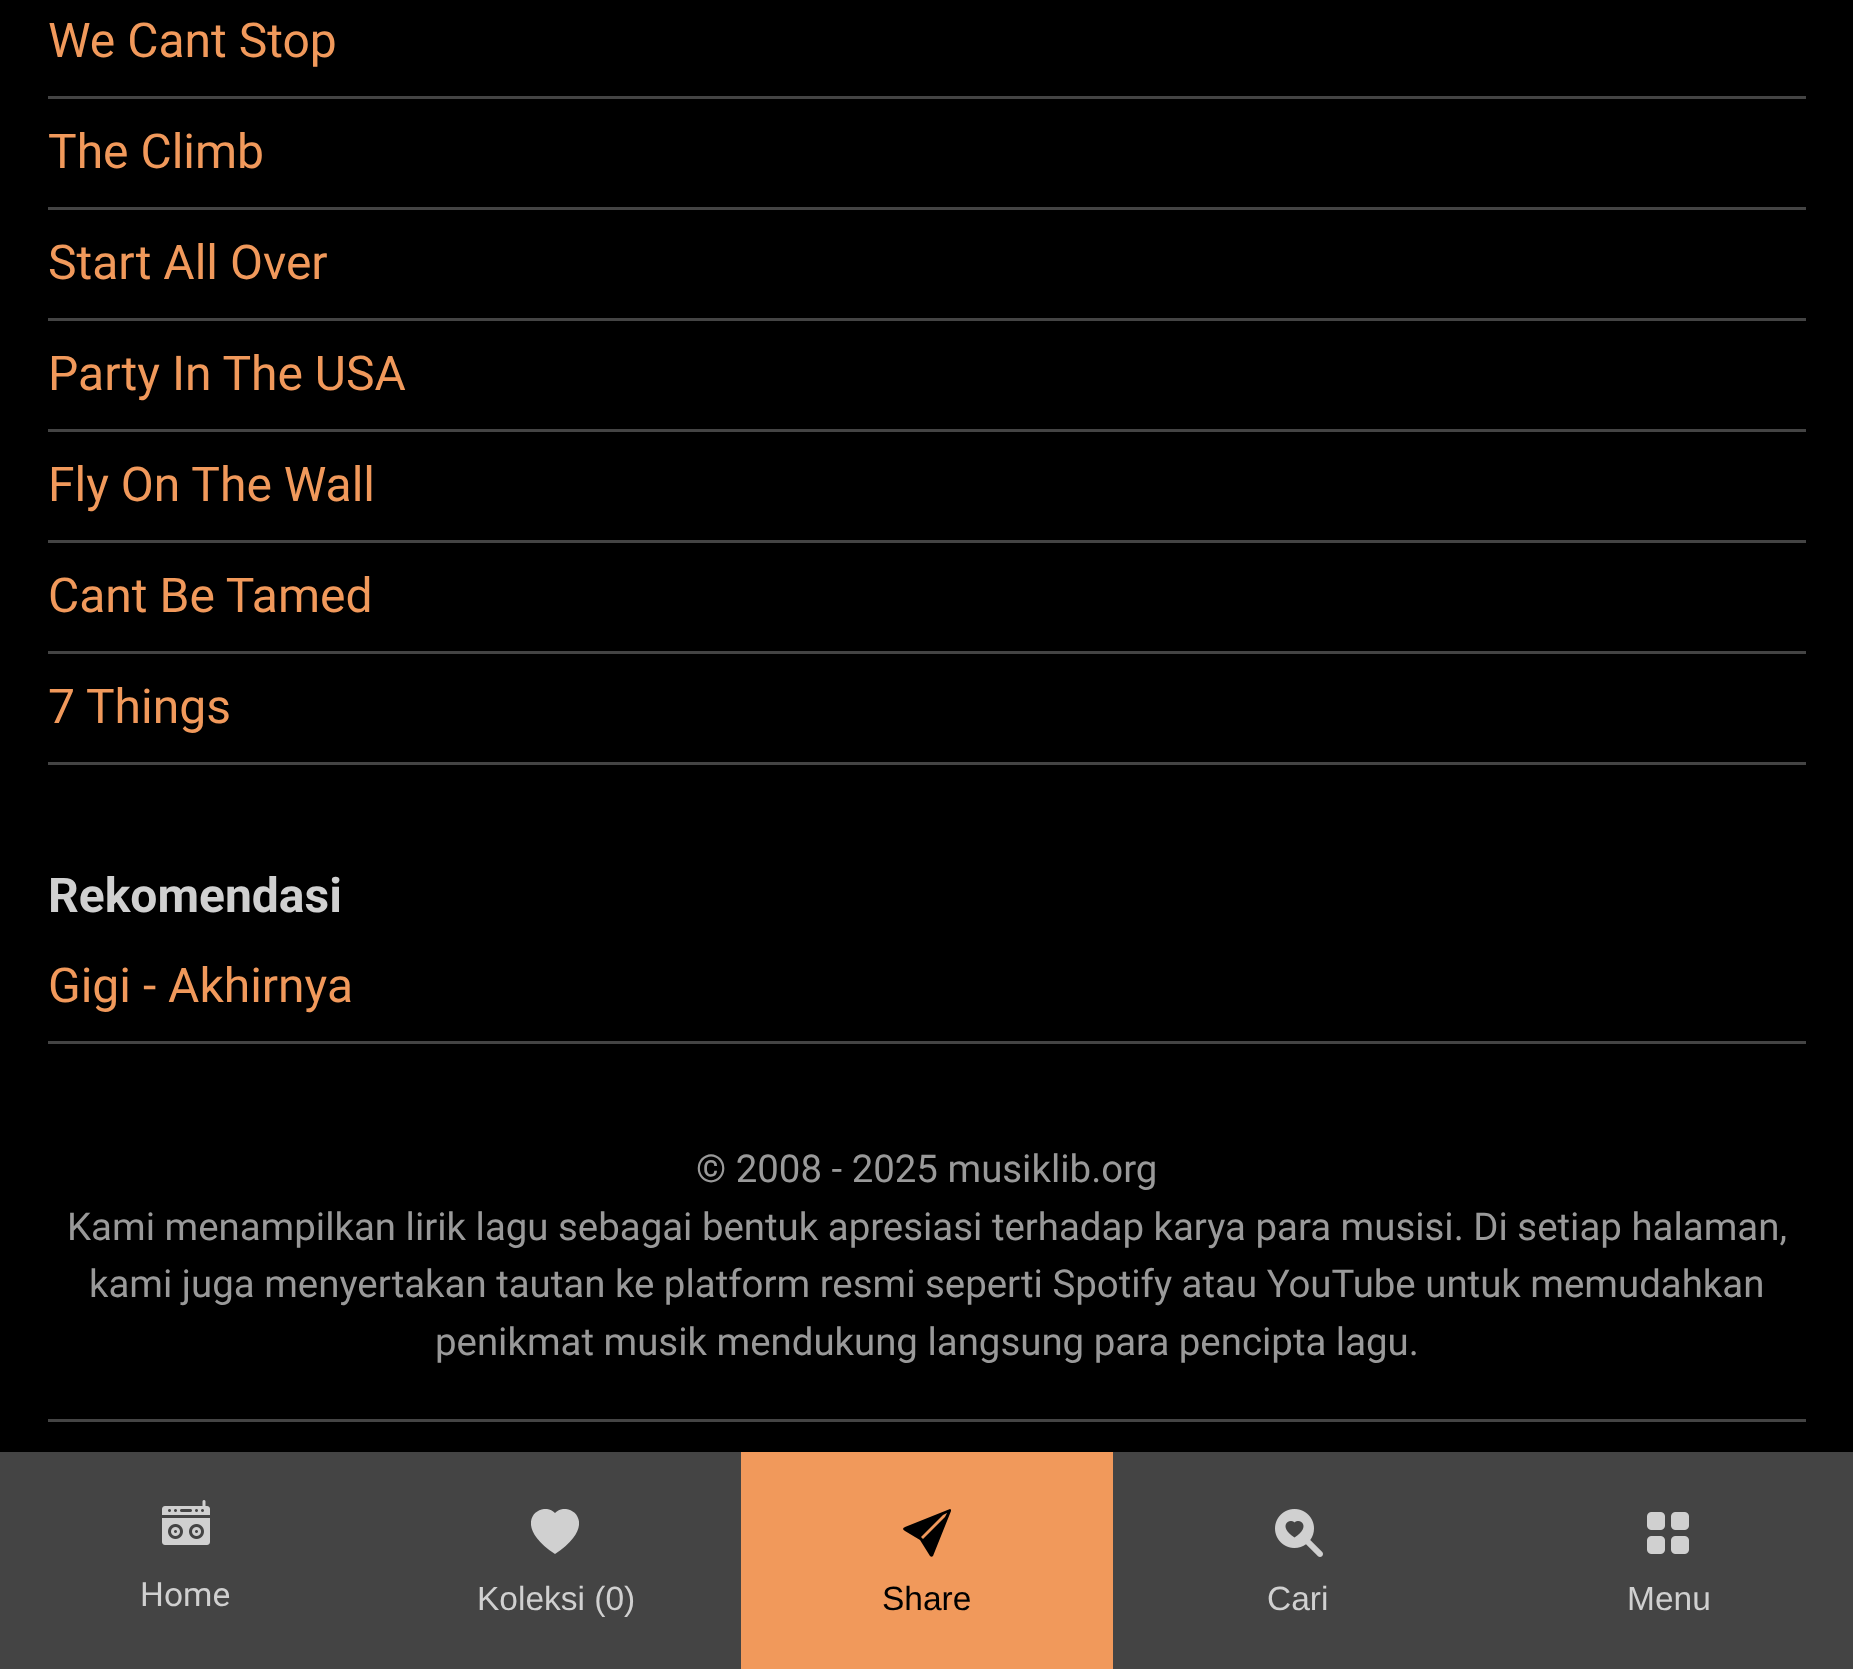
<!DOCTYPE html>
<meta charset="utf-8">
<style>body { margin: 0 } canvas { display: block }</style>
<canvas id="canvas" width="1853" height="1669"></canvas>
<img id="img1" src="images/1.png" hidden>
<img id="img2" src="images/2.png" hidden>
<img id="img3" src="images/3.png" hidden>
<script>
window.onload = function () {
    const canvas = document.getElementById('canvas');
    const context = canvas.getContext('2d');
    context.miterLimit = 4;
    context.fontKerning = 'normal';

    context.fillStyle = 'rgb(0, 0, 0)';
    context.fillRect(0, 0, 1853, 1669);
    context.fillStyle = 'rgb(68, 68, 68)';
    context.fillRect(48, 96, 1758, 3);
    context.fillRect(48, 207, 1758, 3);
    context.fillRect(48, 318, 1758, 3);
    context.fillRect(48, 429, 1758, 3);
    context.fillRect(48, 540, 1758, 3);
    context.fillRect(48, 651, 1758, 3);
    context.fillRect(48, 762, 1758, 3);
    context.fillRect(48, 1041, 1758, 3);
    context.fillRect(48, 1419, 1758, 3);
    context.fillRect(0, 1452, 741, 217);
    context.drawImage(document.getElementById('img1'), 162, 1500, 48, 45);
    context.save();
    context.beginPath();
    context.rect(531, 1509, 48, 48);
    context.clip();
    context.fillStyle = 'rgb(208, 208, 208)';
    context.beginPath();
    context.moveTo(555, 1513);
    context.bezierCurveTo(568, 1499, 602, 1523, 555, 1554);
    context.bezierCurveTo(508, 1523, 542, 1499, 555, 1513);
    context.fill('evenodd');
    context.restore();
    context.fillStyle = 'rgb(241, 153, 91)';
    context.fillRect(741, 1452, 372, 217);
    context.fillStyle = 'rgb(0, 0, 0)';
    context.beginPath();
    context.moveTo(951, 1511);
    context.bezierCurveTo(951, 1510, 951, 1509, 950, 1509);
    context.lineTo(905, 1527);
    context.bezierCurveTo(903, 1528, 902, 1529, 905, 1531);
    context.lineTo(920, 1540);
    context.lineTo(930, 1556);
    context.bezierCurveTo(931, 1557, 932, 1557, 933, 1556);
    context.closePath();
    context.moveTo(945, 1517);
    context.lineTo(923, 1539);
    context.lineTo(921, 1537);
    context.lineTo(943, 1515);
    context.lineTo(947, 1513);
    context.closePath();
    context.fill();
    context.fillStyle = 'rgb(68, 68, 68)';
    context.fillRect(1113, 1452, 740, 217);
    context.drawImage(document.getElementById('img2'), 1275, 1509, 48, 48);
    context.drawImage(document.getElementById('img3'), 1647, 1512, 42, 42);
    context.font = '48px Roboto';
    context.fillStyle = 'rgb(241, 153, 91)';
    context.fillText('We Cant Stop', 48, 57);
    context.fillText('The Climb', 48, 168);
    context.fillText('Start All Over', 48, 279);
    context.fillText('Party In The USA', 48, 390);
    context.fillText('Fly On The Wall', 48, 501);
    context.fillText('Cant Be Tamed', 48, 612);
    context.fillText('7 Things', 48, 723);
    context.font = 'bold 48px Roboto';
    context.fillStyle = 'rgb(208, 208, 208)';
    context.fillText('Rekomendasi', 48, 912);
    context.font = '48px Roboto';
    context.fillStyle = 'rgb(241, 153, 91)';
    context.fillText('Gigi - Akhirnya', 48, 1002);
    context.font = '38.4px Roboto';
    context.fillStyle = 'rgb(153, 153, 153)';
    context.fillText('© 2008 - 2025 musiklib.org', 696, 1182);
    context.fillText('Kami menampilkan lirik lagu sebagai bentuk apresiasi terhadap karya para musisi. Di setiap halaman,', 67, 1240);
    context.fillText('kami juga menyertakan tautan ke platform resmi seperti Spotify atau YouTube untuk memudahkan', 89, 1297);
    context.fillText('penikmat musik mendukung langsung para pencipta lagu.', 435, 1355);
    context.font = '33.5px Roboto';
    context.fillStyle = 'rgb(208, 208, 208)';
    context.fillText('Home', 140, 1606);
    context.font = '33.5px Liberation Sans';
    context.fillText('Koleksi (0)', 477, 1610);
    context.fillStyle = 'rgb(0, 0, 0)';
    context.fillText('Share', 882, 1610);
    context.fillStyle = 'rgb(208, 208, 208)';
    context.fillText('Cari', 1267, 1610);
    context.fillText('Menu', 1627, 1610);
};
</script>
